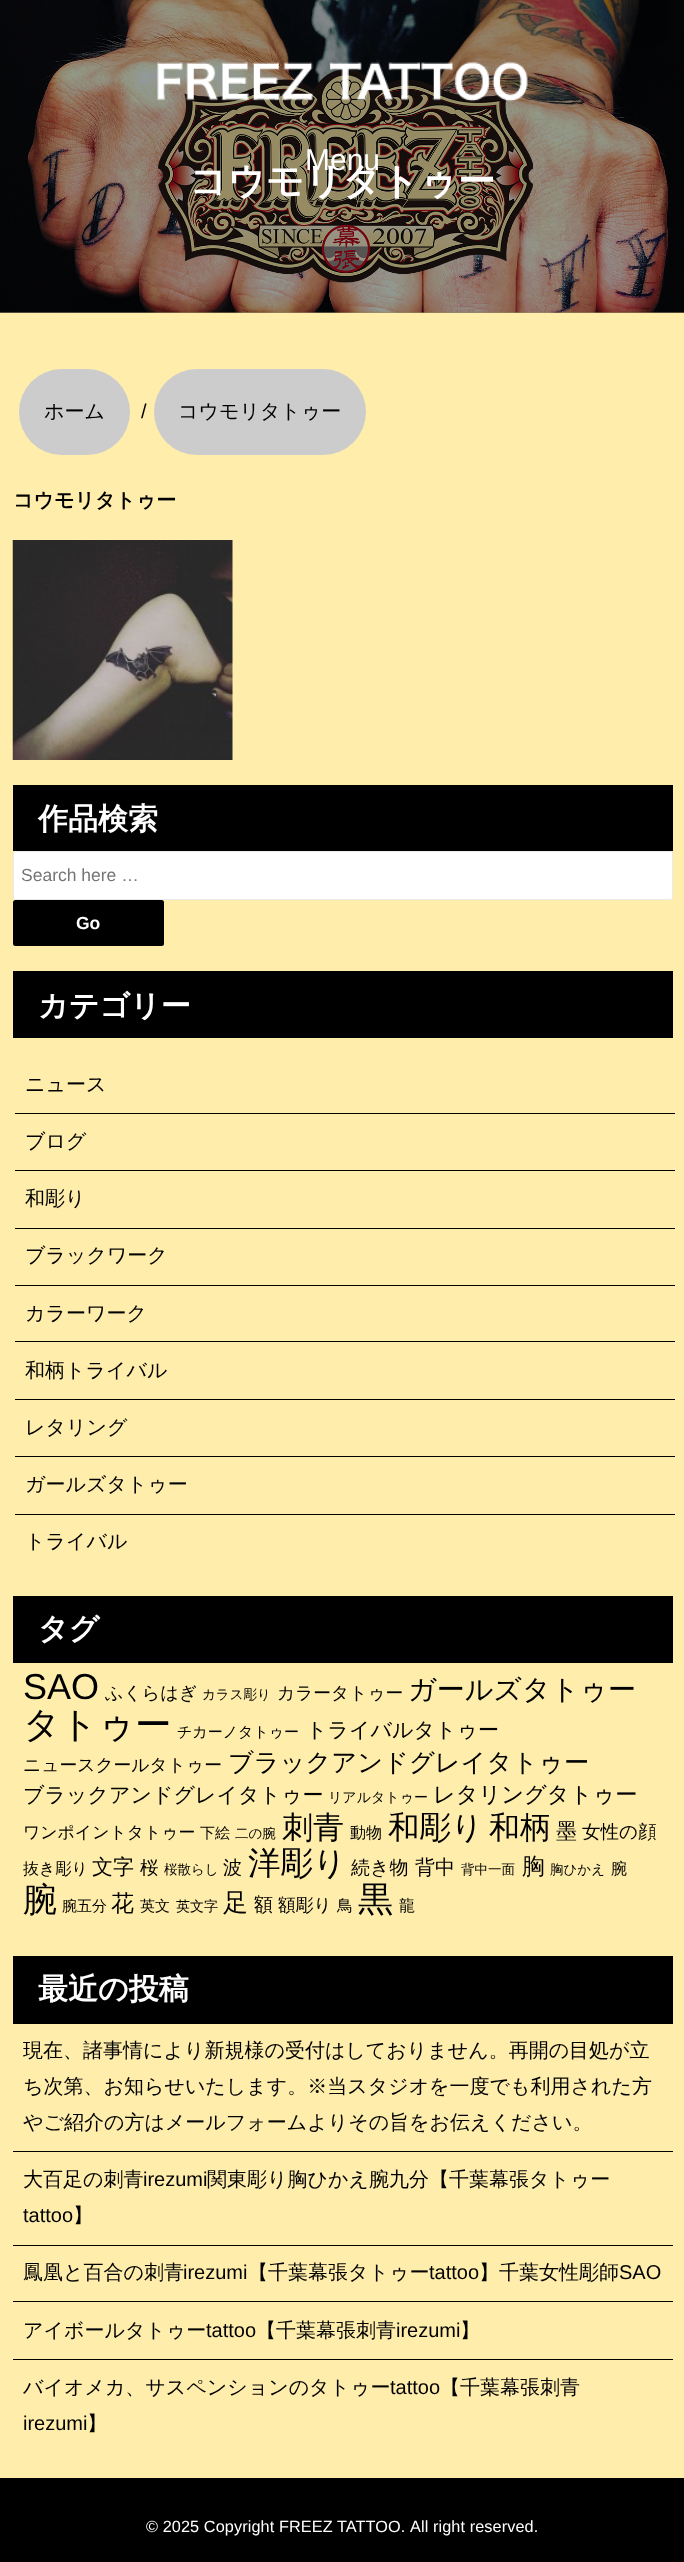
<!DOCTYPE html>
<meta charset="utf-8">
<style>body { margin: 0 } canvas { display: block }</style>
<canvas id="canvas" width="684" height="2562"></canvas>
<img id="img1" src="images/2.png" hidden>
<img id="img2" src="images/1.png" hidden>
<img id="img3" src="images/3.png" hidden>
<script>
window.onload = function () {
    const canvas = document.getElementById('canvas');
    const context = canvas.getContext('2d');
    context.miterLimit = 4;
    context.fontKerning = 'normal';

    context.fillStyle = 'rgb(0, 0, 0)';
    context.fillRect(0, 0, 684, 2562);
    context.fillStyle = 'rgb(153, 142, 103)';
    context.fillRect(0, 312, 684, 1);
    context.drawImage(document.getElementById('img1'), 0, 0, 684, 313);
    context.drawImage(document.getElementById('img2'), 157, 62, 371, 40);
    context.fillStyle = 'rgb(255, 237, 171)';
    context.fillRect(0, 313, 684, 2165);
    context.fillStyle = 'rgb(204, 204, 204)';
    context.beginPath();
    context.roundRect(19, 369, 111, 86, 43);
    context.fill();
    context.beginPath();
    context.roundRect(154, 369, 212, 86, 43);
    context.fill();
    context.drawImage(document.getElementById('img3'), 12, 540, 221, 220);
    context.fillStyle = 'rgb(0, 0, 0)';
    context.fillRect(13, 785, 660, 66);
    context.fillStyle = 'rgb(255, 255, 255)';
    context.beginPath();
    context.roundRect(13.5, 851.5, 659, 48, 2);
    context.fill();
    context.strokeStyle = 'rgb(234, 234, 234)';
    context.stroke();
    context.fillStyle = 'rgb(0, 0, 0)';
    context.beginPath();
    context.roundRect(13, 900, 151, 46, 2.5);
    context.fill();
    context.fillRect(13, 971, 660, 67);
    context.fillRect(15, 1113, 660, 1);
    context.fillRect(15, 1170, 660, 1);
    context.fillRect(15, 1228, 660, 1);
    context.fillRect(15, 1285, 660, 1);
    context.fillRect(15, 1341, 660, 1);
    context.fillRect(15, 1399, 660, 1);
    context.fillRect(15, 1456, 660, 1);
    context.fillRect(15, 1514, 660, 1);
    context.fillRect(13, 1596, 660, 67);
    context.fillRect(13, 1956, 660, 68);
    context.fillRect(13, 2151, 660, 1);
    context.fillRect(13, 2245, 660, 1);
    context.fillRect(13, 2301, 660, 1);
    context.fillRect(13, 2359, 660, 1);
    context.font = '30px Liberation Sans';
    context.fillStyle = 'rgb(255, 255, 255)';
    context.fillText('Menu', 305, 170);
    context.font = 'bold 37.5px WenQuanYi Zen Hei';
    context.fillText('コウモリタトゥー', 189, 194);
    context.font = '500 20px WenQuanYi Zen Hei';
    context.fillStyle = 'rgb(0, 0, 0)';
    context.fillText('ホーム', 44, 418);
    context.font = '20px Liberation Sans';
    context.fillText('/', 141, 418);
    context.font = '500 20px WenQuanYi Zen Hei';
    context.fillText('コウモリタトゥー', 178, 418);
    context.font = 'bold 20px WenQuanYi Zen Hei';
    context.fillText('コウモリタトゥー', 13, 507);
    context.font = 'bold 30px WenQuanYi Zen Hei';
    context.fillStyle = 'rgb(255, 255, 255)';
    context.fillText('作品検索', 38, 829);
    context.font = '17.5px Liberation Sans';
    context.fillStyle = 'rgb(117, 117, 117)';
    context.fillText('Search here …', 21, 881);
    context.font = 'bold 17.5px Liberation Sans';
    context.fillStyle = 'rgb(255, 255, 255)';
    context.fillText('Go', 76, 929);
    context.font = 'bold 30px WenQuanYi Zen Hei';
    context.fillText('カテゴリー', 38, 1016);
    context.font = '500 20px WenQuanYi Zen Hei';
    context.fillStyle = 'rgb(0, 0, 0)';
    context.fillText('ニュース', 25, 1091);
    context.fillText('ブログ', 25, 1148);
    context.fillText('和彫り', 25, 1205);
    context.fillText('ブラックワーク', 25, 1262);
    context.fillText('カラーワーク', 25, 1320);
    context.fillText('和柄トライバル', 25, 1377);
    context.fillText('レタリング', 25, 1434);
    context.fillText('ガールズタトゥー', 25, 1491);
    context.fillText('トライバル', 25, 1548);
    context.font = 'bold 30px WenQuanYi Zen Hei';
    context.fillStyle = 'rgb(255, 255, 255)';
    context.fillText('タグ', 38, 1639);
    context.font = '36px Liberation Sans';
    context.fillStyle = 'rgb(0, 0, 0)';
    context.fillText('SAO', 23, 1699);
    context.font = '500 18px WenQuanYi Zen Hei';
    context.fillText('ふくらはぎ', 105, 1699);
    context.font = '500 13.5px WenQuanYi Zen Hei';
    context.fillText('カラス彫り', 202, 1699);
    context.font = '500 17.75px WenQuanYi Zen Hei';
    context.fillText('カラータトゥー', 277, 1699);
    context.font = '500 28px WenQuanYi Zen Hei';
    context.fillText('ガールズタトゥー', 408, 1699);
    context.font = '500 36.5px WenQuanYi Zen Hei';
    context.fillText('タトゥー', 23, 1737);
    context.font = '500 15px WenQuanYi Zen Hei';
    context.fillText('チカーノタトゥー', 177, 1737);
    context.font = '500 21px WenQuanYi Zen Hei';
    context.fillText('トライバルタトゥー', 306, 1737);
    context.font = '500 17.8px WenQuanYi Zen Hei';
    context.fillText('ニュースクールタトゥー', 23, 1771);
    context.font = '500 25.25px WenQuanYi Zen Hei';
    context.fillText('ブラックアンドグレイタトゥー', 228, 1771);
    context.font = '500 21px WenQuanYi Zen Hei';
    context.fillText('ブラックアンドグレイタトゥー', 23, 1802);
    context.font = '500 14px WenQuanYi Zen Hei';
    context.fillText('リアルタトゥー', 328, 1802);
    context.font = '500 22.25px WenQuanYi Zen Hei';
    context.fillText('レタリングタトゥー', 433, 1802);
    context.font = '500 16.9px WenQuanYi Zen Hei';
    context.fillText('ワンポイントタトゥー', 23, 1838);
    context.font = '500 15px WenQuanYi Zen Hei';
    context.fillText('下絵', 200, 1838);
    context.font = '500 13.5px WenQuanYi Zen Hei';
    context.fillText('二の腕', 235, 1838);
    context.font = '500 31px WenQuanYi Zen Hei';
    context.fillText('刺青', 282, 1838);
    context.font = '500 16px WenQuanYi Zen Hei';
    context.fillText('動物', 350, 1838);
    context.font = '500 31.5px WenQuanYi Zen Hei';
    context.fillText('和彫り', 388, 1838);
    context.font = '500 31px WenQuanYi Zen Hei';
    context.fillText('和柄', 489, 1838);
    context.font = '500 21px WenQuanYi Zen Hei';
    context.fillText('墨', 556, 1838);
    context.font = '500 18.5px WenQuanYi Zen Hei';
    context.fillText('女性の顔', 582, 1838);
    context.font = '500 16px WenQuanYi Zen Hei';
    context.fillText('抜き彫り', 23, 1874);
    context.font = '500 21px WenQuanYi Zen Hei';
    context.fillText('文字', 92, 1874);
    context.font = '500 18.5px WenQuanYi Zen Hei';
    context.fillText('桜', 140, 1874);
    context.font = '500 13.5px WenQuanYi Zen Hei';
    context.fillText('桜散らし', 164, 1874);
    context.font = '500 19px WenQuanYi Zen Hei';
    context.fillText('波', 223, 1874);
    context.font = '500 32.5px WenQuanYi Zen Hei';
    context.fillText('洋彫り', 248, 1874);
    context.font = '500 19px WenQuanYi Zen Hei';
    context.fillText('続き物', 351, 1874);
    context.font = '500 20px WenQuanYi Zen Hei';
    context.fillText('背中', 415, 1874);
    context.font = '500 13.5px WenQuanYi Zen Hei';
    context.fillText('背中一面', 461, 1874);
    context.font = '500 23px WenQuanYi Zen Hei';
    context.fillText('胸', 522, 1874);
    context.font = '500 13.5px WenQuanYi Zen Hei';
    context.fillText('胸ひかえ', 550, 1874);
    context.font = '500 16px WenQuanYi Zen Hei';
    context.fillText('腕', 611, 1874);
    context.font = '500 34px WenQuanYi Zen Hei';
    context.fillText('腕', 23, 1911);
    context.font = '500 15px WenQuanYi Zen Hei';
    context.fillText('腕五分', 62, 1911);
    context.font = '500 23px WenQuanYi Zen Hei';
    context.fillText('花', 111, 1911);
    context.font = '500 15px WenQuanYi Zen Hei';
    context.fillText('英文', 140, 1911);
    context.font = '500 14px WenQuanYi Zen Hei';
    context.fillText('英文字', 176, 1911);
    context.font = '500 25px WenQuanYi Zen Hei';
    context.fillText('足', 223, 1911);
    context.font = '500 19px WenQuanYi Zen Hei';
    context.fillText('額', 254, 1911);
    context.font = '500 17.75px WenQuanYi Zen Hei';
    context.fillText('額彫り', 278, 1911);
    context.font = '500 16px WenQuanYi Zen Hei';
    context.fillText('鳥', 337, 1911);
    context.font = '500 35px WenQuanYi Zen Hei';
    context.fillText('黒', 358, 1911);
    context.font = '500 16px WenQuanYi Zen Hei';
    context.fillText('龍', 399, 1911);
    context.font = 'bold 30px WenQuanYi Zen Hei';
    context.fillStyle = 'rgb(255, 255, 255)';
    context.fillText('最近の投稿', 38, 1999);
    context.font = '500 20px WenQuanYi Zen Hei';
    context.fillStyle = 'rgb(0, 0, 0)';
    context.fillText('現在、諸事情により新規様の受付はしておりません。再開の目処が立', 23, 2057);
    context.fillText('ち次第、お知らせいたします。※当スタジオを一度でも利用された方', 23, 2093);
    context.fillText('やご紹介の方はメールフォームよりその旨をお伝えください。', 23, 2129);
    context.fillText('大百足の刺青', 23, 2186);
    context.font = '20px Liberation Sans';
    context.fillText('irezumi', 143, 2186);
    context.font = '500 20px WenQuanYi Zen Hei';
    context.fillText('関東彫り胸ひかえ腕九分【千葉幕張タトゥー', 207, 2186);
    context.font = '20px Liberation Sans';
    context.fillText('tattoo', 23, 2222);
    context.font = '500 20px WenQuanYi Zen Hei';
    context.fillText('】', 73, 2222);
    context.fillText('鳳凰と百合の刺青', 23, 2279);
    context.font = '20px Liberation Sans';
    context.fillText('irezumi', 183, 2279);
    context.font = '500 20px WenQuanYi Zen Hei';
    context.fillText('【千葉幕張タトゥー', 248, 2279);
    context.font = '20px Liberation Sans';
    context.fillText('tattoo', 429, 2279);
    context.font = '500 20px WenQuanYi Zen Hei';
    context.fillText('】千葉女性彫師', 479, 2279);
    context.font = '20px Liberation Sans';
    context.fillText('SAO', 619, 2279);
    context.font = '500 20px WenQuanYi Zen Hei';
    context.fillText('アイボールタトゥー', 23, 2337);
    context.font = '20px Liberation Sans';
    context.fillText('tattoo', 206, 2337);
    context.font = '500 20px WenQuanYi Zen Hei';
    context.fillText('【千葉幕張刺青', 256, 2337);
    context.font = '20px Liberation Sans';
    context.fillText('irezumi', 396, 2337);
    context.font = '500 20px WenQuanYi Zen Hei';
    context.fillText('】', 460, 2337);
    context.fillText('バイオメカ、サスペンションのタトゥー', 23, 2394);
    context.font = '20px Liberation Sans';
    context.fillText('tattoo', 390, 2394);
    context.font = '500 20px WenQuanYi Zen Hei';
    context.fillText('【千葉幕張刺青', 440, 2394);
    context.font = '20px Liberation Sans';
    context.fillText('irezumi', 23, 2430);
    context.font = '500 20px WenQuanYi Zen Hei';
    context.fillText('】', 87, 2430);
    context.letterSpacing = '0.1px';
    context.font = '16.25px Liberation Sans';
    context.fillStyle = 'rgb(255, 255, 255)';
    context.fillText('© 2025 Copyright FREEZ TATTOO.', 146, 2532);
    context.fillText('All right reserved.', 410, 2532);
};
</script>
